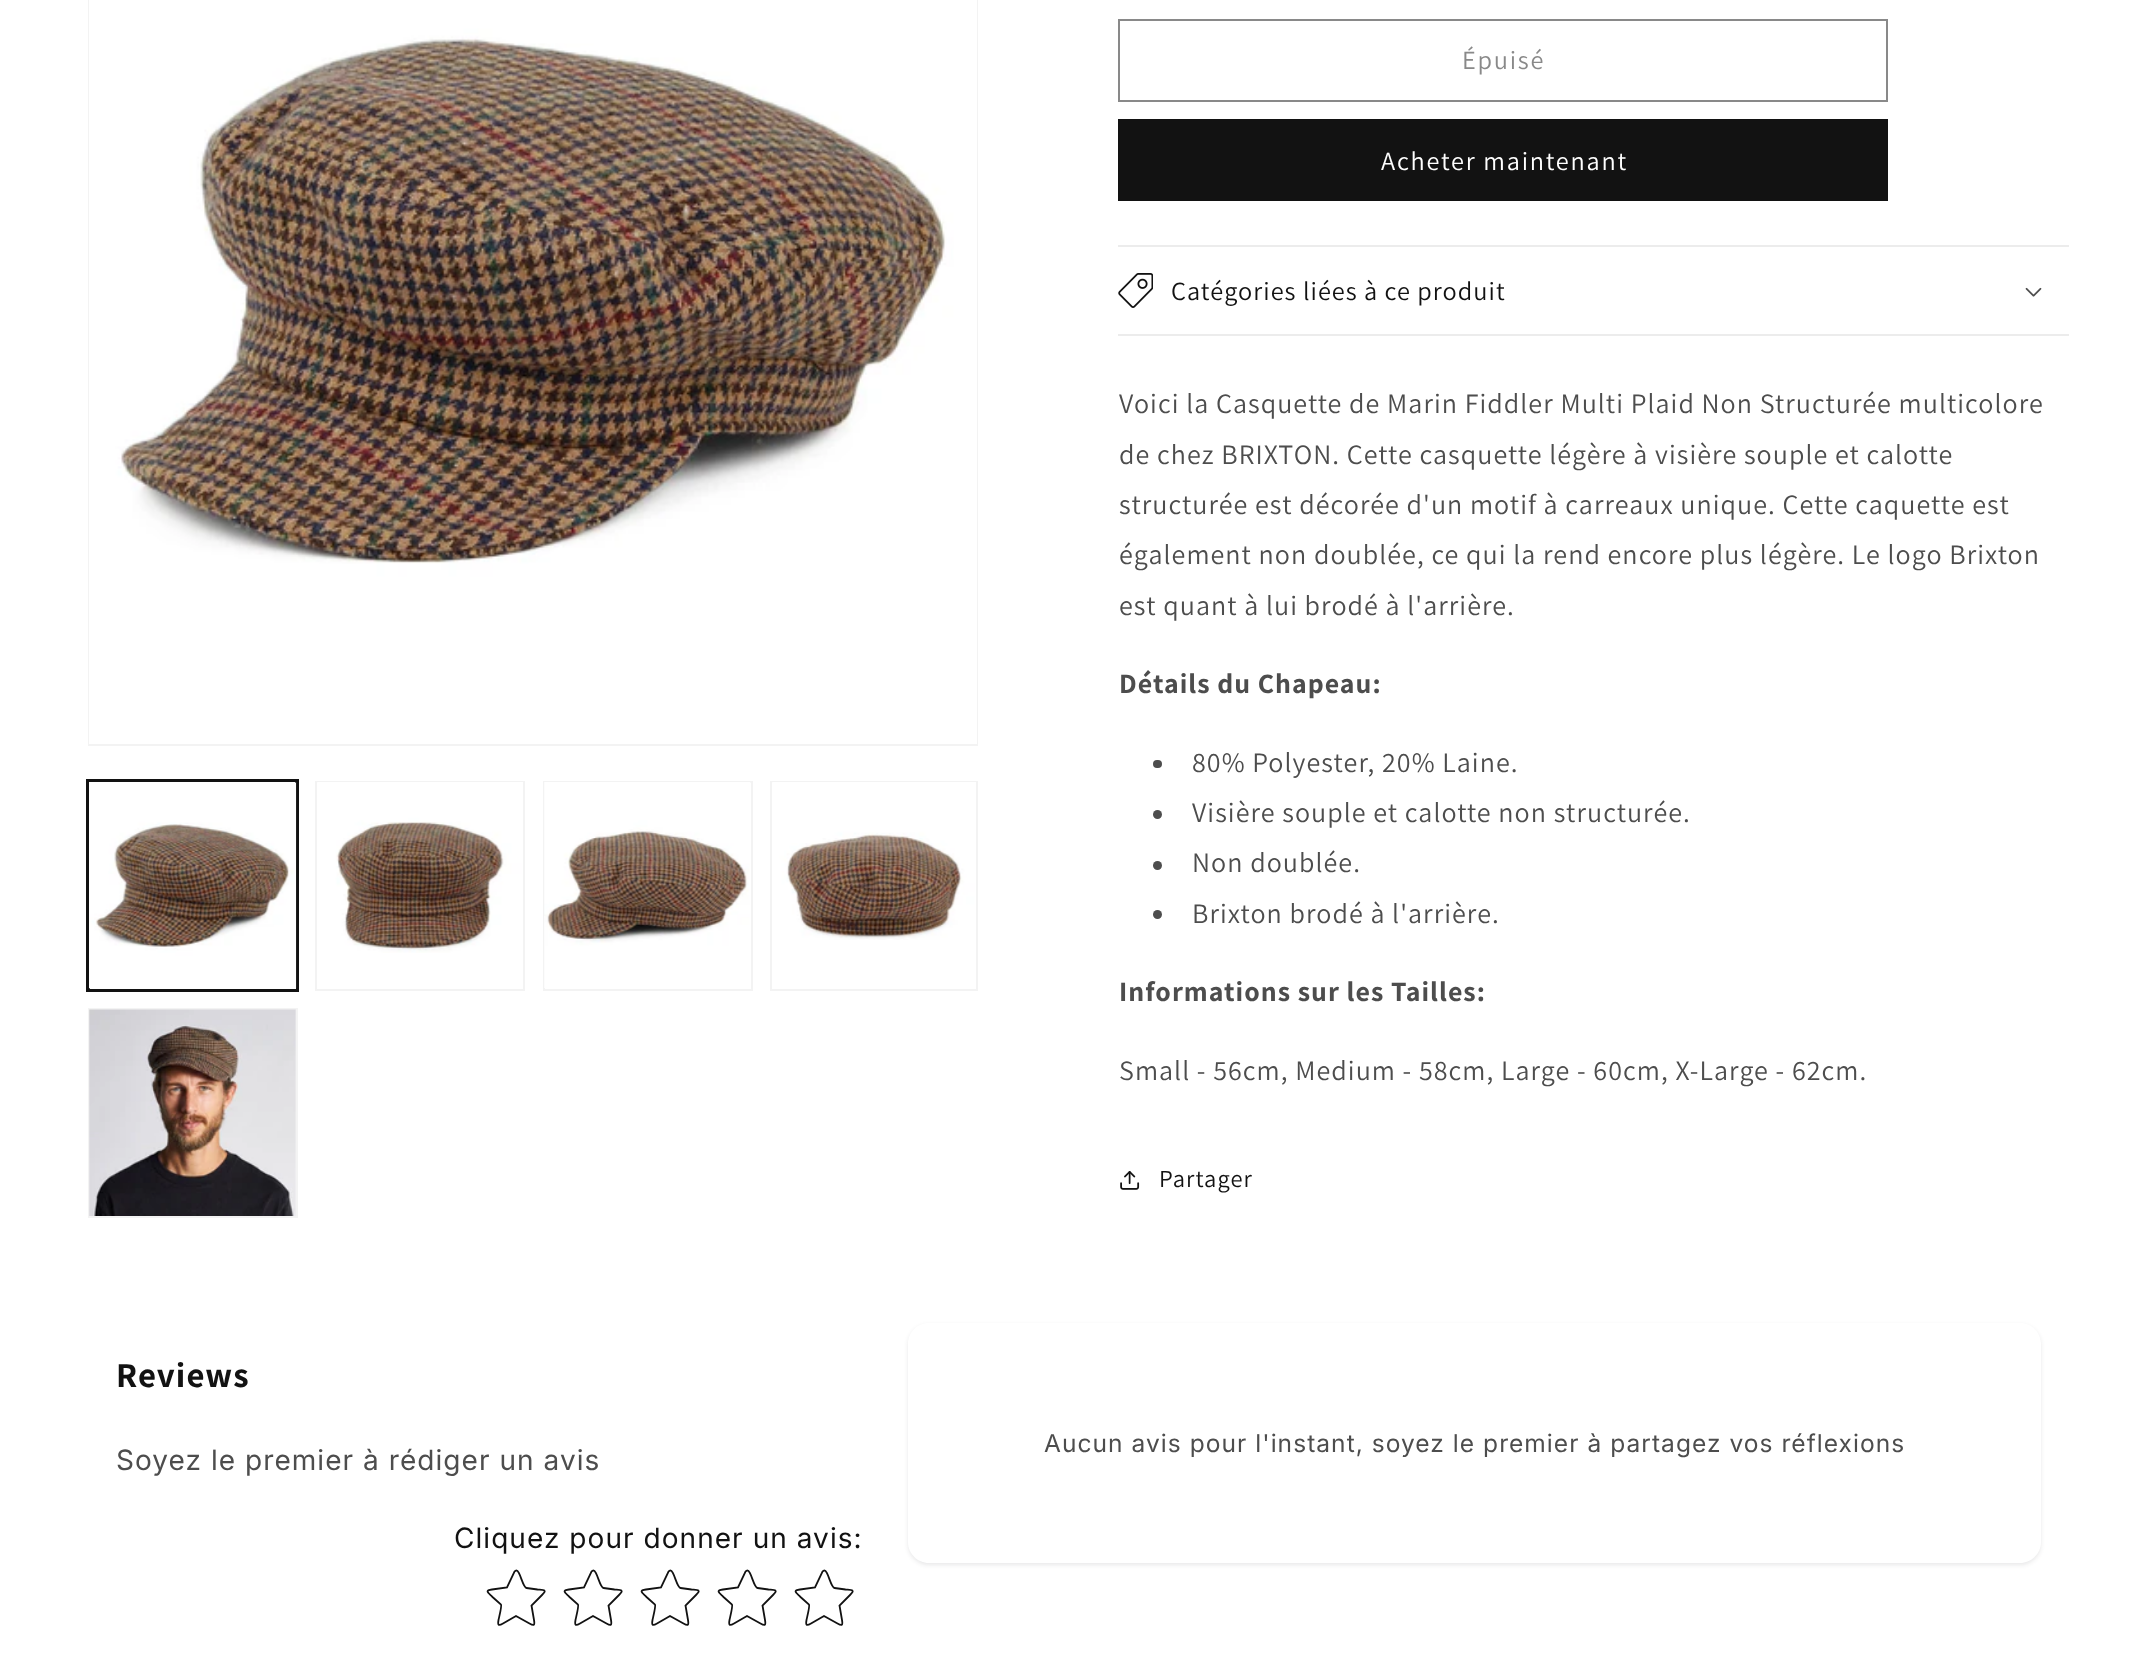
<!DOCTYPE html>
<meta charset="utf-8">
<style>body { margin: 0 } canvas { display: block }</style>
<canvas id="canvas" width="2156" height="1662"></canvas>
<img id="img1" src="images/1.png" hidden>
<img id="img2" src="images/2.png" hidden>
<img id="img3" src="images/3.png" hidden>
<img id="img4" src="images/4.png" hidden>
<img id="img5" src="images/5.png" hidden>
<img id="img6" src="images/6.png" hidden>
<img id="img7" src="images/7.png" hidden>
<img id="img8" src="images/8.png" hidden>
<img id="img9" src="images/9.png" hidden>
<script>
window.onload = function () {
    const canvas = document.getElementById('canvas');
    const context = canvas.getContext('2d');
    context.miterLimit = 4;
    context.fontKerning = 'normal';

    context.fillStyle = 'rgb(255, 255, 255)';
    context.fillRect(0, 0, 2156, 1662);
    context.strokeStyle = 'rgb(243, 243, 243)';
    context.lineWidth = 2;
    context.strokeRect(89, -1, 888, 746);
    context.drawImage(document.getElementById('img1'), 89, 0, 888, 744);
    context.strokeStyle = 'rgb(18, 18, 18)';
    context.strokeRect(87, 780, 211, 211);
    context.strokeRect(89, 782, 208, 208);
    context.drawImage(document.getElementById('img2'), 89, 782, 208, 207);
    context.strokeStyle = 'rgb(243, 243, 243)';
    context.strokeRect(316, 782, 208, 208);
    context.drawImage(document.getElementById('img3'), 317, 782, 206, 171);
    context.strokeRect(544, 782, 208, 208);
    context.drawImage(document.getElementById('img4'), 544, 782, 207, 206);
    context.strokeRect(771, 782, 206, 208);
    context.drawImage(document.getElementById('img5'), 772, 782, 204, 158);
    context.strokeRect(89, 1009, 208, 208);
    context.drawImage(document.getElementById('img6'), 89, 1009, 207, 207);
    context.strokeStyle = 'rgb(137, 137, 137)';
    context.strokeRect(1119, 20, 768, 81);
    context.fillStyle = 'rgb(18, 18, 18)';
    context.fillRect(1118, 119, 770, 82);
    context.fillStyle = 'rgb(236, 236, 236)';
    context.fillRect(1118, 245, 951, 2);
    context.fillRect(1118, 334, 951, 2);
    context.drawImage(document.getElementById('img7'), 1118, 273, 35, 35);
    context.drawImage(document.getElementById('img8'), 2025, 287, 17, 10);
    context.fillStyle = 'rgb(77, 77, 77)';
    context.beginPath();
    context.roundRect(1153, 760, 9, 8, 4);
    context.fill();
    context.beginPath();
    context.arc(1157.5, 814.5, 4.5, 0, 2 * Math.PI);
    context.fill();
    context.beginPath();
    context.arc(1157.5, 865.5, 4.5, 0, 2 * Math.PI);
    context.fill();
    context.beginPath();
    context.arc(1157.5, 914.5, 4.5, 0, 2 * Math.PI);
    context.fill();
    context.drawImage(document.getElementById('img9'), 1120, 1171, 20, 19);
    context.beginPath();
    context.moveTo(514.5, 1571.5);
    context.lineTo(516, 1570.5);
    context.bezierCurveTo(520, 1569.5, 522.5, 1587.5, 526.5, 1588);
    context.lineTo(537.5, 1589.5);
    context.bezierCurveTo(543, 1590, 548, 1589.5, 542, 1595);
    context.lineTo(531.5, 1605.5);
    context.lineTo(534, 1620);
    context.bezierCurveTo(535, 1625.5, 534, 1626, 529.5, 1623.5);
    context.lineTo(516, 1616);
    context.lineTo(503, 1623.5);
    context.bezierCurveTo(498.5, 1626, 497.5, 1625.5, 498.5, 1620);
    context.bezierCurveTo(499, 1617.5, 502, 1606, 501, 1604.5);
    context.lineTo(492.5, 1597);
    context.bezierCurveTo(488.5, 1593, 484, 1590.5, 492, 1589.5);
    context.lineTo(507, 1587.5);
    context.closePath();
    context.strokeStyle = 'rgb(18, 18, 18)';
    context.lineWidth = 1.8;
    context.stroke();
    context.beginPath();
    context.moveTo(591.5, 1571.5);
    context.lineTo(593, 1570.5);
    context.bezierCurveTo(597, 1569.5, 599.5, 1587.5, 603.5, 1588);
    context.lineTo(614.5, 1589.5);
    context.bezierCurveTo(620, 1590, 625, 1589.5, 619, 1595);
    context.lineTo(608.5, 1605.5);
    context.lineTo(611, 1620);
    context.bezierCurveTo(612, 1625.5, 611, 1626, 606.5, 1623.5);
    context.lineTo(593, 1616);
    context.lineTo(580, 1623.5);
    context.bezierCurveTo(575.5, 1626, 574.5, 1625.5, 575.5, 1620);
    context.bezierCurveTo(576, 1617.5, 579, 1606, 578, 1604.5);
    context.lineTo(569.5, 1597);
    context.bezierCurveTo(565.5, 1593, 561, 1590.5, 569, 1589.5);
    context.lineTo(584, 1587.5);
    context.closePath();
    context.stroke();
    context.beginPath();
    context.moveTo(668.5, 1571.5);
    context.lineTo(670, 1570.5);
    context.bezierCurveTo(674, 1569.5, 676.5, 1587.5, 680.5, 1588);
    context.lineTo(691.5, 1589.5);
    context.bezierCurveTo(697, 1590, 702, 1589.5, 696, 1595);
    context.lineTo(685.5, 1605.5);
    context.lineTo(688, 1620);
    context.bezierCurveTo(689, 1625.5, 688, 1626, 683.5, 1623.5);
    context.lineTo(670, 1616);
    context.lineTo(657, 1623.5);
    context.bezierCurveTo(652.5, 1626, 651.5, 1625.5, 652.5, 1620);
    context.bezierCurveTo(653, 1617.5, 656, 1606, 655, 1604.5);
    context.lineTo(646.5, 1597);
    context.bezierCurveTo(642.5, 1593, 638, 1590.5, 646, 1589.5);
    context.lineTo(661, 1587.5);
    context.closePath();
    context.stroke();
    context.beginPath();
    context.moveTo(745.5, 1571.5);
    context.lineTo(747, 1570.5);
    context.bezierCurveTo(751, 1569.5, 753.5, 1587.5, 757.5, 1588);
    context.lineTo(768.5, 1589.5);
    context.bezierCurveTo(774, 1590, 779, 1589.5, 773, 1595);
    context.lineTo(762.5, 1605.5);
    context.lineTo(765, 1620);
    context.bezierCurveTo(766, 1625.5, 765, 1626, 760.5, 1623.5);
    context.lineTo(747, 1616);
    context.lineTo(734, 1623.5);
    context.bezierCurveTo(729.5, 1626, 728.5, 1625.5, 729.5, 1620);
    context.bezierCurveTo(730, 1617.5, 733, 1606, 732, 1604.5);
    context.lineTo(723.5, 1597);
    context.bezierCurveTo(719.5, 1593, 715, 1590.5, 723, 1589.5);
    context.lineTo(738, 1587.5);
    context.closePath();
    context.stroke();
    context.beginPath();
    context.moveTo(822.5, 1571.5);
    context.lineTo(824, 1570.5);
    context.bezierCurveTo(828, 1569.5, 830.5, 1587.5, 834.5, 1588);
    context.lineTo(845.5, 1589.5);
    context.bezierCurveTo(851, 1590, 856, 1589.5, 850, 1595);
    context.lineTo(839.5, 1605.5);
    context.lineTo(842, 1620);
    context.bezierCurveTo(843, 1625.5, 842, 1626, 837.5, 1623.5);
    context.lineTo(824, 1616);
    context.lineTo(811, 1623.5);
    context.bezierCurveTo(806.5, 1626, 805.5, 1625.5, 806.5, 1620);
    context.bezierCurveTo(807, 1617.5, 810, 1606, 809, 1604.5);
    context.lineTo(800.5, 1597);
    context.bezierCurveTo(796.5, 1593, 792, 1590.5, 800, 1589.5);
    context.lineTo(815, 1587.5);
    context.closePath();
    context.stroke();
    context.save();
    context.beginPath();
    context.moveTo(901, 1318);
    context.lineTo(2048, 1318);
    context.lineTo(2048, 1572);
    context.lineTo(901, 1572);
    context.closePath();
    context.moveTo(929, 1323);
    context.lineTo(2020, 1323);
    context.bezierCurveTo(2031.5, 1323, 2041, 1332.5, 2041, 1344);
    context.lineTo(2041, 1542);
    context.bezierCurveTo(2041, 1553.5, 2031.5, 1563, 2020, 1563);
    context.lineTo(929, 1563);
    context.bezierCurveTo(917.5, 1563, 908, 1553.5, 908, 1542);
    context.lineTo(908, 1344);
    context.bezierCurveTo(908, 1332.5, 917.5, 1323, 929, 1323);
    context.closePath();
    context.clip('evenodd');
    context.fillStyle = 'rgba(31, 33, 36, 0.1)';
    context.filter = 'blur(2px)';
    context.beginPath();
    context.roundRect(908, 1325, 1133, 240, 21);
    context.fill();
    context.filter = 'none';
    context.restore();
    context.letterSpacing = '1.75px';
    context.font = '26.25px Assistant';
    context.fillStyle = 'rgb(137, 137, 137)';
    context.fillText('Épuisé', 1462, 69);
    context.fillStyle = 'rgb(255, 255, 255)';
    context.fillText('Acheter maintenant', 1381, 170);
    context.letterSpacing = '1.05px';
    context.fillStyle = 'rgb(18, 18, 18)';
    context.fillText('Catégories liées à ce produit', 1171, 300);
    context.font = '28px Assistant';
    context.fillStyle = 'rgb(77, 77, 77)';
    context.fillText('Voici la Casquette de Marin Fiddler Multi Plaid Non Structurée multicolore', 1119, 413);
    context.fillText('de chez BRIXTON. Cette casquette légère à visière souple et calotte', 1119, 464);
    context.fillText('structurée est décorée d\'un motif à carreaux unique. Cette caquette est', 1119, 514);
    context.fillText('également non doublée, ce qui la rend encore plus légère. Le logo Brixton', 1119, 564);
    context.fillText('est quant à lui brodé à l\'arrière.', 1119, 615);
    context.font = 'bold 28px Assistant';
    context.fillText('Détails du Chapeau:', 1119, 693);
    context.font = '28px Assistant';
    context.fillText('80% Polyester, 20% Laine.', 1192, 772);
    context.fillText('Visière souple et calotte non structurée.', 1192, 822);
    context.fillText('Non doublée.', 1192, 872);
    context.fillText('Brixton brodé à l\'arrière.', 1192, 923);
    context.font = 'bold 28px Assistant';
    context.fillText('Informations sur les Tailles:', 1119, 1001);
    context.font = '28px Assistant';
    context.fillText('Small - 56cm, Medium - 58cm, Large - 60cm, X-Large - 62cm.', 1119, 1080);
    context.font = '24.5px Assistant';
    context.fillStyle = 'rgb(18, 18, 18)';
    context.fillText('Partager', 1159, 1187);
    context.font = 'bold 35px Assistant';
    context.fillText('Reviews', 116, 1387);
    context.font = '28px Inter';
    context.fillStyle = 'rgb(77, 77, 77)';
    context.fillText('Soyez le premier à rédiger un avis', 116, 1470);
    context.fillStyle = 'rgb(18, 18, 18)';
    context.fillText('Cliquez pour donner un avis:', 454, 1548);
    context.font = '24.5px Inter';
    context.fillStyle = 'rgb(77, 77, 77)';
    context.fillText('Aucun avis pour l\'instant, soyez le premier à partagez vos réflexions', 1044, 1452);
};
</script>
